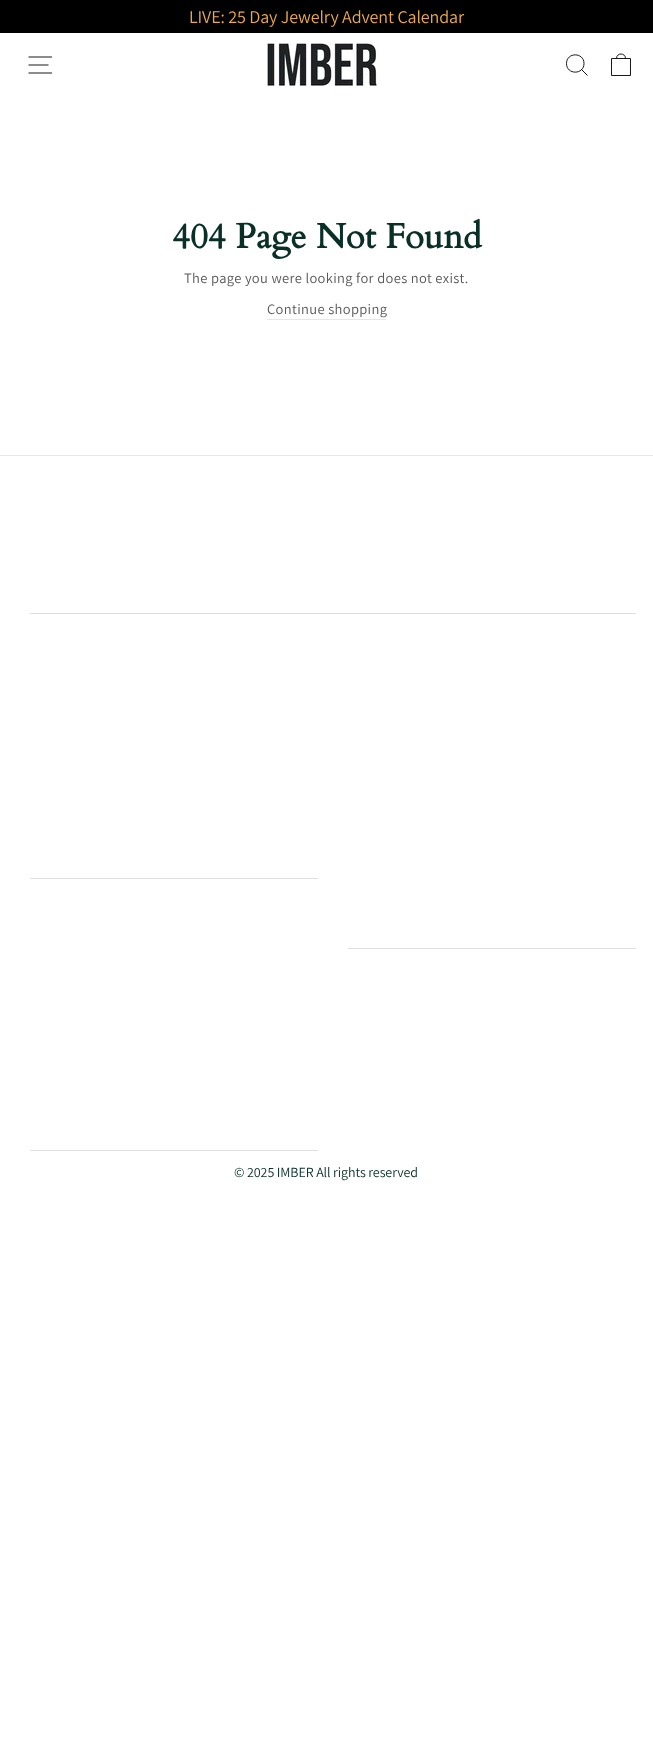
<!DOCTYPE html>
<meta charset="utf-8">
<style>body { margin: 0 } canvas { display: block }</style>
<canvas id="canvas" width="653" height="1762"></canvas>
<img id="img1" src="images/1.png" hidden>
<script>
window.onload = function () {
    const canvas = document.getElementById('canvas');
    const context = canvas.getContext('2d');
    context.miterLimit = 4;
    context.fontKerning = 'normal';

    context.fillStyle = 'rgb(255, 255, 255)';
    context.fillRect(0, 0, 653, 1762);
    context.fillStyle = 'rgb(0, 0, 0)';
    context.fillRect(0, 0, 653, 33);
    context.beginPath();
    context.moveTo(28.5, 57);
    context.lineTo(52, 57);
    context.moveTo(28.5, 65);
    context.lineTo(48.5, 65);
    context.moveTo(28.5, 73);
    context.lineTo(52, 73);
    context.strokeStyle = 'rgb(0, 0, 0)';
    context.lineWidth = 0.9;
    context.stroke();
    context.drawImage(document.getElementById('img1'), 267, 43, 110, 43);
    context.beginPath();
    context.moveTo(584, 63.5);
    context.bezierCurveTo(584, 75, 566.5, 75, 566.5, 63.5);
    context.bezierCurveTo(566.5, 52, 584, 52, 584, 63.5);
    context.closePath();
    context.moveTo(587.5, 75.5);
    context.lineTo(581.5, 69.5);
    context.stroke();
    context.beginPath();
    context.moveTo(611.5, 58.5);
    context.lineTo(630.5, 58.5);
    context.lineTo(630.5, 75.5);
    context.lineTo(611.5, 75.5);
    context.closePath();
    context.moveTo(616.5, 58.5);
    context.bezierCurveTo(616.5, 52.5, 625.5, 52.5, 625.5, 58.5);
    context.stroke();
    context.fillStyle = 'rgb(230, 230, 230)';
    context.fillRect(267, 319, 119, 1);
    context.fillStyle = 'rgb(232, 232, 225)';
    context.fillRect(0, 455, 653, 1);
    context.fillStyle = 'rgb(224, 224, 224)';
    context.fillRect(30, 613, 606, 1);
    context.fillRect(30, 878, 288, 1);
    context.fillRect(348, 948, 288, 1);
    context.fillRect(30, 1150, 288, 1);
    context.letterSpacing = '-0.1px';
    context.font = '18px Assistant';
    context.fillStyle = 'rgb(237, 170, 76)';
    context.fillText('LIVE: 25 Day Jewelry Advent Calendar', 189, 23);
    context.letterSpacing = '0px';
    context.font = 'bold 35px Cardo';
    context.fillStyle = 'rgb(9, 47, 39)';
    context.fillText('404 Page Not Found', 172, 248);
    context.letterSpacing = '0.35px';
    context.font = '14.5px Assistant';
    context.fillStyle = 'rgb(88, 88, 88)';
    context.fillText('The page you were looking for does not exist.', 184, 283);
    context.fillText('Continue shopping', 267, 314);
    context.letterSpacing = '-0.1px';
    context.font = '14px Assistant';
    context.fillStyle = 'rgb(9, 47, 39)';
    context.fillText('© 2025 IMBER All rights reserved', 234, 1177);
};
</script>
